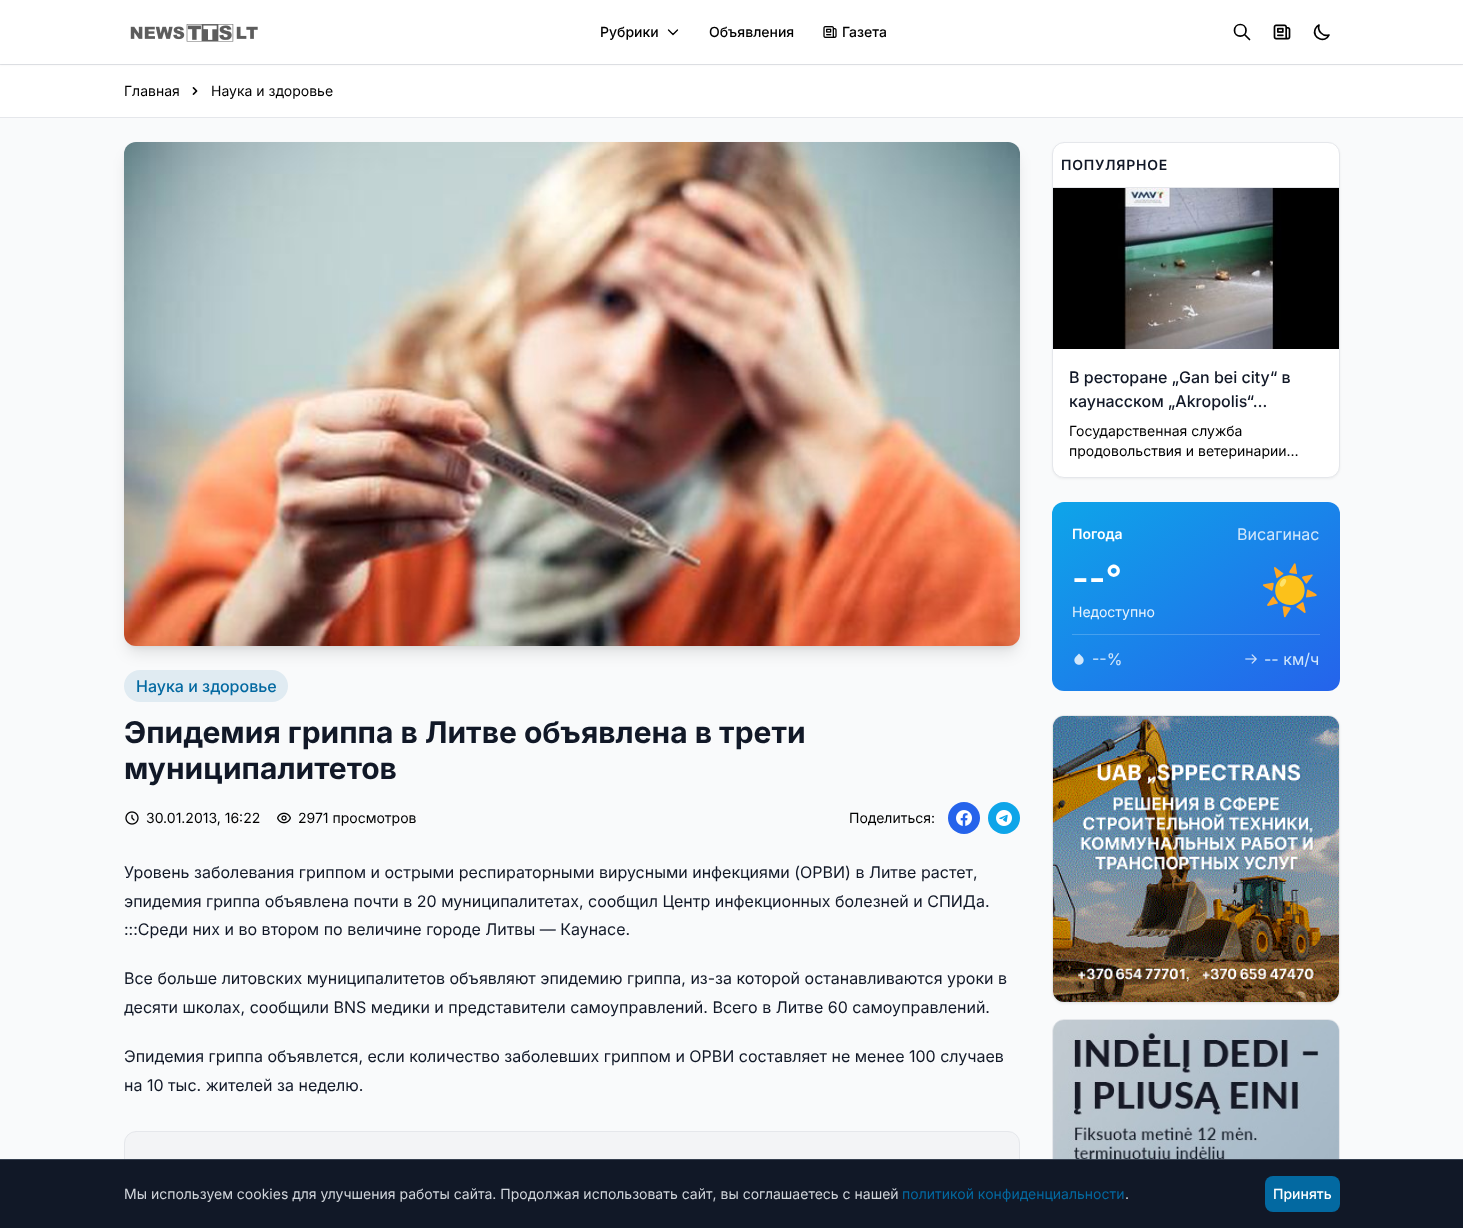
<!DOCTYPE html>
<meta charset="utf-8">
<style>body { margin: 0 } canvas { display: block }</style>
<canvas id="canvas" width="1463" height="1228"></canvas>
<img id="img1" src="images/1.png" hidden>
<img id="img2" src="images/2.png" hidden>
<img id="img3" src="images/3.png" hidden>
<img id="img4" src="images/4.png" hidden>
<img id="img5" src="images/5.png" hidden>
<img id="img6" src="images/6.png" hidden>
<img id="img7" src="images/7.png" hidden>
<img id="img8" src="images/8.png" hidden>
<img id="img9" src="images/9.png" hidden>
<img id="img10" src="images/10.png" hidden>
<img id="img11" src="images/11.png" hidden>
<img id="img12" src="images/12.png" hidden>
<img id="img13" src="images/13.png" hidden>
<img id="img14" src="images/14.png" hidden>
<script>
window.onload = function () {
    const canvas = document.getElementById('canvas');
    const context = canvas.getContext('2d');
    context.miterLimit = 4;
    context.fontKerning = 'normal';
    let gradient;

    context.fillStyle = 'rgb(249, 250, 251)';
    context.fillRect(0, 0, 1463, 1228);
    context.fillStyle = 'rgb(255, 255, 255)';
    context.fillRect(0, 65, 1463, 52);
    context.fillStyle = 'rgb(229, 231, 235)';
    context.fillRect(0, 64, 1463, 1);
    context.fillStyle = 'rgba(0, 0, 0, 0.05)';
    context.filter = 'blur(1px)';
    context.beginPath();
    context.rect(0, 1, 1463, 64);
    context.fill();
    context.filter = 'none';
    context.fillStyle = 'rgb(255, 255, 255)';
    context.fillRect(0, 0, 1463, 64);
    context.drawImage(document.getElementById('img1'), 130, 24, 128, 18);
    context.beginPath();
    context.moveTo(677.5, 30);
    context.lineTo(673, 34.5);
    context.lineTo(668.5, 30);
    context.strokeStyle = 'rgb(0, 0, 0)';
    context.lineWidth = 1.3;
    context.lineCap = 'round';
    context.lineJoin = 'round';
    context.stroke();
    context.drawImage(document.getElementById('img2'), 823, 26, 14, 12);
    context.beginPath();
    context.moveTo(1249.5, 39.5);
    context.lineTo(1244.5, 34.5);
    context.moveTo(1246, 30.5);
    context.bezierCurveTo(1246, 38, 1234.5, 38, 1234.5, 30.5);
    context.bezierCurveTo(1234.5, 22.5, 1246, 22.5, 1246, 30.5);
    context.closePath();
    context.lineWidth = 1.7;
    context.stroke();
    context.drawImage(document.getElementById('img3'), 1273, 24, 18, 16);
    context.beginPath();
    context.moveTo(1329, 35);
    context.bezierCurveTo(1323, 37, 1317, 31, 1319, 25);
    context.bezierCurveTo(1317, 26, 1315.5, 27.5, 1315, 29.5);
    context.bezierCurveTo(1312, 38.5, 1325.5, 43.5, 1329, 35);
    context.closePath();
    context.stroke();
    context.fillStyle = 'rgb(229, 231, 235)';
    context.fillRect(0, 117, 1463, 1);
    context.drawImage(document.getElementById('img4'), 192, 87, 6, 8);
    context.fillStyle = 'rgba(0, 0, 0, 0.05)';
    context.filter = 'blur(1px)';
    context.beginPath();
    context.roundRect(1052, 143, 288, 336, 12);
    context.fill();
    context.filter = 'none';
    context.fillStyle = 'rgb(255, 255, 255)';
    context.beginPath();
    context.roundRect(1052.5, 142.5, 287, 335, 11.5);
    context.fill();
    context.strokeStyle = 'rgb(229, 231, 235)';
    context.lineWidth = 1;
    context.lineJoin = 'miter';
    context.stroke();
    context.fillStyle = 'rgb(229, 231, 235)';
    context.fillRect(1053, 187, 286, 1);
    context.drawImage(document.getElementById('img5'), 1053, 188, 286, 161);
    gradient = context.createLinearGradient(1109, 464, 1283, 729);
    gradient.addColorStop(0, 'rgb(14, 165, 233)');
    gradient.addColorStop(1, 'rgb(37, 99, 235)');
    context.fillStyle = gradient;
    context.beginPath();
    context.roundRect(1052, 502, 288, 189, 12);
    context.fill();
    gradient = context.createLinearGradient(1109, 464, 1283, 729);
    gradient.addColorStop(0, 'rgb(62, 183, 237)');
    gradient.addColorStop(1, 'rgb(81, 130, 239)');
    context.fillStyle = gradient;
    context.fillRect(1072, 634, 248, 1);
    context.drawImage(document.getElementById('img6'), 1074, 653, 10, 12);
    context.drawImage(document.getElementById('img7'), 1245, 654, 12, 10);
    context.fillStyle = 'rgba(0, 0, 0, 0.05)';
    context.filter = 'blur(1px)';
    context.beginPath();
    context.roundRect(1052, 716, 288, 288, 12);
    context.fill();
    context.filter = 'none';
    context.beginPath();
    context.roundRect(1052.5, 715.5, 287, 287, 11.5);
    context.stroke();
    context.drawImage(document.getElementById('img8'), 1053, 716, 286, 286);
    context.beginPath();
    context.roundRect(1052.5, 1019.5, 287, 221, 11.5);
    context.stroke();
    context.drawImage(document.getElementById('img9'), 1053, 1020, 286, 139);
    context.fillStyle = 'rgba(0, 0, 0, 0.1)';
    context.filter = 'blur(3px)';
    context.beginPath();
    context.roundRect(128, 150, 888, 496, 8);
    context.fill();
    context.filter = 'none';
    context.filter = 'blur(7.5px)';
    context.beginPath();
    context.roundRect(127, 155, 890, 498, 9);
    context.fill();
    context.filter = 'none';
    context.drawImage(document.getElementById('img10'), 124, 142, 896, 504);
    context.fillStyle = 'rgb(224, 235, 242)';
    context.beginPath();
    context.roundRect(124, 670, 164, 32, 16);
    context.fill();
    context.drawImage(document.getElementById('img11'), 125, 811, 14, 14);
    context.drawImage(document.getElementById('img12'), 277, 812, 14, 12);
    context.fillStyle = 'rgb(37, 99, 235)';
    context.beginPath();
    context.arc(964, 818, 16, 0, 2 * Math.PI);
    context.fill();
    context.drawImage(document.getElementById('img13'), 956, 810, 16, 16);
    context.fillStyle = 'rgb(14, 165, 233)';
    context.beginPath();
    context.arc(1004, 818, 16, 0, 2 * Math.PI);
    context.fill();
    context.drawImage(document.getElementById('img14'), 996, 810, 16, 16);
    context.fillStyle = 'rgb(243, 244, 246)';
    context.beginPath();
    context.roundRect(124.5, 1131.5, 895, 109, 11.5);
    context.fill();
    context.stroke();
    context.fillStyle = 'rgb(17, 24, 39)';
    context.fillRect(0, 1160, 1463, 68);
    context.fillStyle = 'rgb(55, 65, 81)';
    context.fillRect(0, 1159, 1463, 1);
    context.fillStyle = 'rgb(3, 105, 161)';
    context.beginPath();
    context.roundRect(1265, 1176, 75, 36, 8);
    context.fill();
    context.font = '500 14px Inter';
    context.fillStyle = 'rgb(0, 0, 0)';
    context.fillText('Рубрики', 600, 37);
    context.fillText('Объявления', 709, 37);
    context.fillText('Газета', 842, 37);
    context.font = '14px Inter';
    context.fillText('Главная', 124, 96);
    context.fillText('Наука и здоровье', 211, 96);
    context.letterSpacing = '0.75px';
    context.font = '600 14px Inter';
    context.fillStyle = 'rgb(17, 24, 39)';
    context.fillText('ПОПУЛЯРНОЕ', 1061, 170);
    context.letterSpacing = '0px';
    context.font = '500 16px Inter';
    context.fillText('В ресторане „Gan bei city“ в', 1069, 383);
    context.fillText('каунасском „Akropolis“…', 1069, 407);
    context.font = '14px Inter';
    context.fillStyle = 'rgb(0, 0, 0)';
    context.fillText('Государственная служба', 1069, 436);
    context.fillText('продовольствия и ветеринарии…', 1069, 456);
    context.font = '600 14px Inter';
    context.fillStyle = 'rgb(255, 255, 255)';
    context.fillText('Погода', 1072, 539);
    context.font = '16px Inter';
    context.fillStyle = 'rgb(209, 231, 251)';
    context.fillText('Висагинас', 1237, 540);
    context.font = '600 36px Inter';
    context.fillStyle = 'rgb(255, 255, 255)';
    context.fillText('--°', 1072, 591);
    context.font = '14px Inter';
    context.fillStyle = 'rgb(232, 243, 253)';
    context.fillText('Недоступно', 1072, 617);
    context.font = '48px Noto Color Emoji';
    context.fillStyle = 'rgb(17, 24, 39)';
    context.fillText('☀️', 1260, 607);
    context.font = '16px Inter';
    context.fillStyle = 'rgb(209, 231, 251)';
    context.fillText('--%', 1092, 665);
    context.fillText('-- км/ч', 1264, 665);
    context.font = '500 16px Inter';
    context.fillStyle = 'rgb(3, 105, 161)';
    context.fillText('Наука и здоровье', 136, 692);
    context.font = 'bold 30px Inter';
    context.fillStyle = 'rgb(17, 24, 39)';
    context.fillText('Эпидемия гриппа в Литве объявлена в трети', 124, 743);
    context.fillText('муниципалитетов', 124, 779);
    context.font = '14px Inter';
    context.fillStyle = 'rgb(0, 0, 0)';
    context.fillText('30.01.2013, 16:22', 146, 823);
    context.fillText('2971 просмотров', 298, 823);
    context.fillText('Поделиться:', 849, 823);
    context.font = '16px Inter';
    context.fillStyle = 'rgb(17, 24, 39)';
    context.fillText('Уровень заболевания гриппом и острыми респираторными вирусными инфекциями (ОРВИ) в Литве растет,', 124, 878);
    context.fillText('эпидемия гриппа объявлена почти в 20 муниципалитетах, сообщил Центр инфекционных болезней и СПИДа.', 124, 907);
    context.fillText(':::Среди них и во втором по величине городе Литвы — Каунасе.', 124, 935);
    context.fillText('Все больше литовских муниципалитетов объявляют эпидемию гриппа, из-за которой останавливаются уроки в', 124, 984);
    context.fillText('десяти школах, сообщили BNS медики и представители самоуправлений. Всего в Литве 60 самоуправлений.', 124, 1013);
    context.fillText('Эпидемия гриппа объявлется, если количество заболевших гриппом и ОРВИ составляет не менее 100 случаев', 124, 1062);
    context.fillText('на 10 тыс. жителей за неделю.', 124, 1091);
    context.font = '14px Inter';
    context.fillStyle = 'rgb(209, 213, 219)';
    context.fillText('Мы используем cookies для улучшения работы сайта. Продолжая использовать сайт, вы соглашаетесь с нашей', 124, 1199);
    context.fillStyle = 'rgb(3, 105, 161)';
    context.fillText('политикой конфиденциальности', 902, 1199);
    context.fillStyle = 'rgb(209, 213, 219)';
    context.fillText('.', 1125, 1199);
    context.font = '500 14px Inter';
    context.fillStyle = 'rgb(255, 255, 255)';
    context.fillText('Принять', 1273, 1199);
};
</script>
